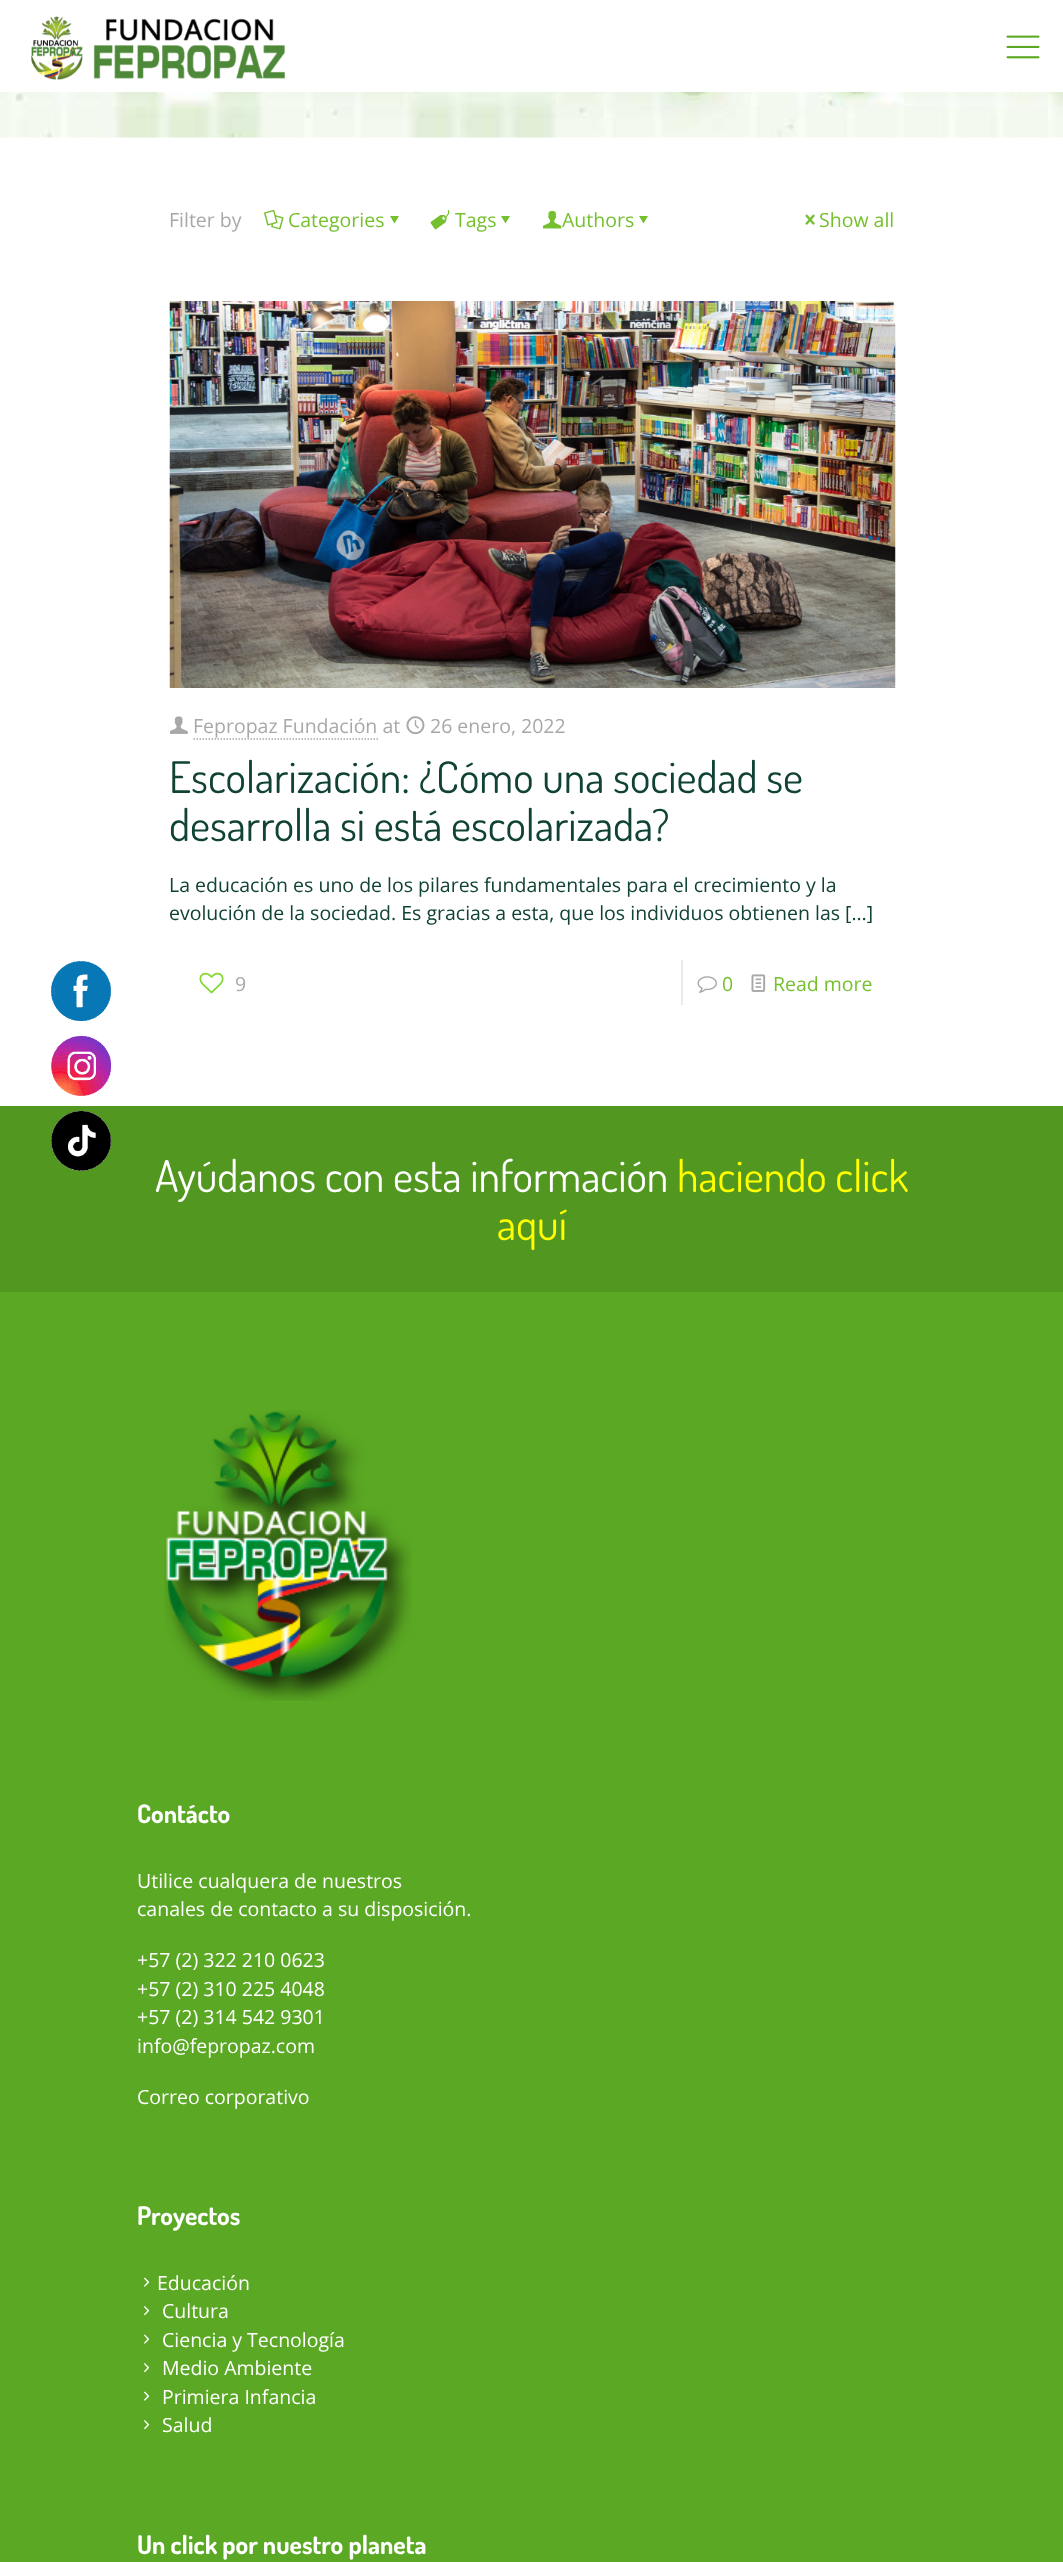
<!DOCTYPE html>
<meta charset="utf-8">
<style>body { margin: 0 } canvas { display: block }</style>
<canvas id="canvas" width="1063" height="2562"></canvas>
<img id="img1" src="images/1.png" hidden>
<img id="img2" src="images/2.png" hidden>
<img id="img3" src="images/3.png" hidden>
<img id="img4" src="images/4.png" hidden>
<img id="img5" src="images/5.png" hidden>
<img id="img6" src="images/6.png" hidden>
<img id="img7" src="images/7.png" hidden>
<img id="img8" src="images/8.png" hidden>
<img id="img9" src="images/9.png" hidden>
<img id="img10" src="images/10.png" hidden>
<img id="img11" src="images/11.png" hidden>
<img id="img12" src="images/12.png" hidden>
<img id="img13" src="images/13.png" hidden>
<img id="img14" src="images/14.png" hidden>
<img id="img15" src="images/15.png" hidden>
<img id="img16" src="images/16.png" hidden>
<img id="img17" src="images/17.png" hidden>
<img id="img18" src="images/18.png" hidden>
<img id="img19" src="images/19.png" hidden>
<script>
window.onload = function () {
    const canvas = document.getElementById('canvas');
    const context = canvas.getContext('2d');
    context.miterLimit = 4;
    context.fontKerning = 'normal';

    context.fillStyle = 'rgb(255, 255, 255)';
    context.fillRect(0, 0, 1063, 2562);
    context.drawImage(document.getElementById('img1'), 51, 961, 60, 60);
    context.drawImage(document.getElementById('img2'), 51, 1036, 60, 60);
    context.fillStyle = 'rgb(81, 151, 32)';
    context.fillRect(0, 1106, 1063, 186);
    context.drawImage(document.getElementById('img3'), 51, 1111, 60, 60);
    context.drawImage(document.getElementById('img4'), 31, 16, 254, 64);
    context.drawImage(document.getElementById('img5'), 1006, 35, 34, 24);
    context.drawImage(document.getElementById('img6'), 0, 92, 1063, 46);
    context.drawImage(document.getElementById('img7'), 264, 209, 20, 21);
    context.fillStyle = 'rgb(118, 192, 48)';
    context.beginPath();
    context.moveTo(399, 216);
    context.lineTo(394.5, 223.5);
    context.lineTo(390, 216);
    context.closePath();
    context.fill();
    context.drawImage(document.getElementById('img8'), 430, 209, 20, 21);
    context.beginPath();
    context.moveTo(510, 216);
    context.lineTo(505.5, 223.5);
    context.lineTo(501, 216);
    context.closePath();
    context.fill();
    context.drawImage(document.getElementById('img9'), 543, 210, 19, 19);
    context.beginPath();
    context.moveTo(648, 216);
    context.lineTo(643.5, 223.5);
    context.lineTo(639, 216);
    context.closePath();
    context.fill();
    context.drawImage(document.getElementById('img10'), 805, 214, 10, 11);
    context.drawImage(document.getElementById('img11'), 169, 301, 727, 387);
    context.drawImage(document.getElementById('img12'), 170, 716, 18, 18);
    context.beginPath();
    context.moveTo(193.5, 739);
    context.lineTo(378, 739);
    context.strokeStyle = 'rgb(168, 168, 168)';
    context.lineWidth = 1.5;
    context.setLineDash([1.5, 1.5]);
    context.stroke();
    context.drawImage(document.getElementById('img13'), 406, 716, 19, 19);
    context.drawImage(document.getElementById('img14'), 199, 972, 25, 22);
    context.fillStyle = 'rgb(235, 235, 235)';
    context.fillRect(681, 960, 2, 45);
    context.drawImage(document.getElementById('img15'), 697, 976, 20, 17);
    context.drawImage(document.getElementById('img16'), 751, 974, 15, 18);
    context.fillStyle = 'rgb(90, 168, 35)';
    context.fillRect(0, 1292, 1063, 1270);
    context.drawImage(document.getElementById('img17'), 164, 1410, 248, 291);
    context.drawImage(document.getElementById('img18'), 144, 2277, 6, 10);
    context.drawImage(document.getElementById('img19'), 144, 2306, 6, 10);
    context.drawImage(document.getElementById('img18'), 144, 2334, 6, 10);
    context.drawImage(document.getElementById('img19'), 144, 2363, 6, 10);
    context.drawImage(document.getElementById('img18'), 144, 2391, 6, 10);
    context.drawImage(document.getElementById('img19'), 144, 2420, 6, 10);
    context.font = '19.5px Open Sans';
    context.fillStyle = 'rgb(168, 168, 168)';
    context.fillText('Filter by', 169, 227);
    context.fillStyle = 'rgb(118, 192, 48)';
    context.fillText('Categories', 288, 227);
    context.fillText('Tags', 455, 227);
    context.fillText('Authors', 562, 227);
    context.fillText('Show all', 819, 227);
    context.fillStyle = 'rgb(168, 168, 168)';
    context.fillText('Fepropaz Fundación at', 193, 733);
    context.fillText('26 enero, 2022', 430, 733);
    context.font = '43.5px Dosis';
    context.fillStyle = 'rgb(16, 66, 53)';
    context.fillText('Escolarización: ¿Cómo una sociedad se', 169, 793);
    context.fillText('desarrolla si está escolarizada?', 169, 841);
    context.font = '19.5px Open Sans';
    context.fillText('La educación es uno de los pilares fundamentales para el crecimiento y la', 169, 892);
    context.fillText('evolución de la sociedad. Es gracias a esta, que los individuos obtienen las […]', 169, 920);
    context.fillStyle = 'rgb(168, 168, 168)';
    context.fillText('9', 235, 991);
    context.fillStyle = 'rgb(118, 192, 48)';
    context.fillText('0', 722, 991);
    context.fillText('Read more', 773, 991);
    context.font = '43.5px Dosis';
    context.fillStyle = 'rgb(255, 255, 255)';
    context.fillText('Ayúdanos con esta información', 155, 1192);
    context.fillStyle = 'rgb(255, 255, 0)';
    context.fillText('haciendo click', 677, 1192);
    context.fillText('aquí', 497, 1240);
    context.font = 'bold 25.5px Dosis';
    context.fillStyle = 'rgb(255, 255, 255)';
    context.fillText('Contácto', 137, 1823);
    context.font = '19.5px Open Sans';
    context.fillText('Utilice cualquera de nuestros', 137, 1888);
    context.fillText('canales de contacto a su disposición.', 137, 1916);
    context.fillText('+57 (2) 322 210 0623', 137, 1967);
    context.fillText('+57 (2) 310 225 4048', 137, 1996);
    context.fillText('+57 (2) 314 542 9301', 137, 2024);
    context.fillText('info@fepropaz.com', 137, 2053);
    context.fillText('Correo corporativo', 137, 2104);
    context.font = 'bold 25.5px Dosis';
    context.fillText('Proyectos', 137, 2225);
    context.font = '19.5px Open Sans';
    context.fillText('Educación', 157, 2290);
    context.fillText('Cultura', 162, 2318);
    context.fillText('Ciencia y Tecnología', 162, 2347);
    context.fillText('Medio Ambiente', 162, 2375);
    context.fillText('Primiera Infancia', 162, 2404);
    context.fillText('Salud', 162, 2432);
    context.font = 'bold 25.5px Dosis';
    context.fillText('Un click por nuestro planeta', 137, 2554);
};
</script>
